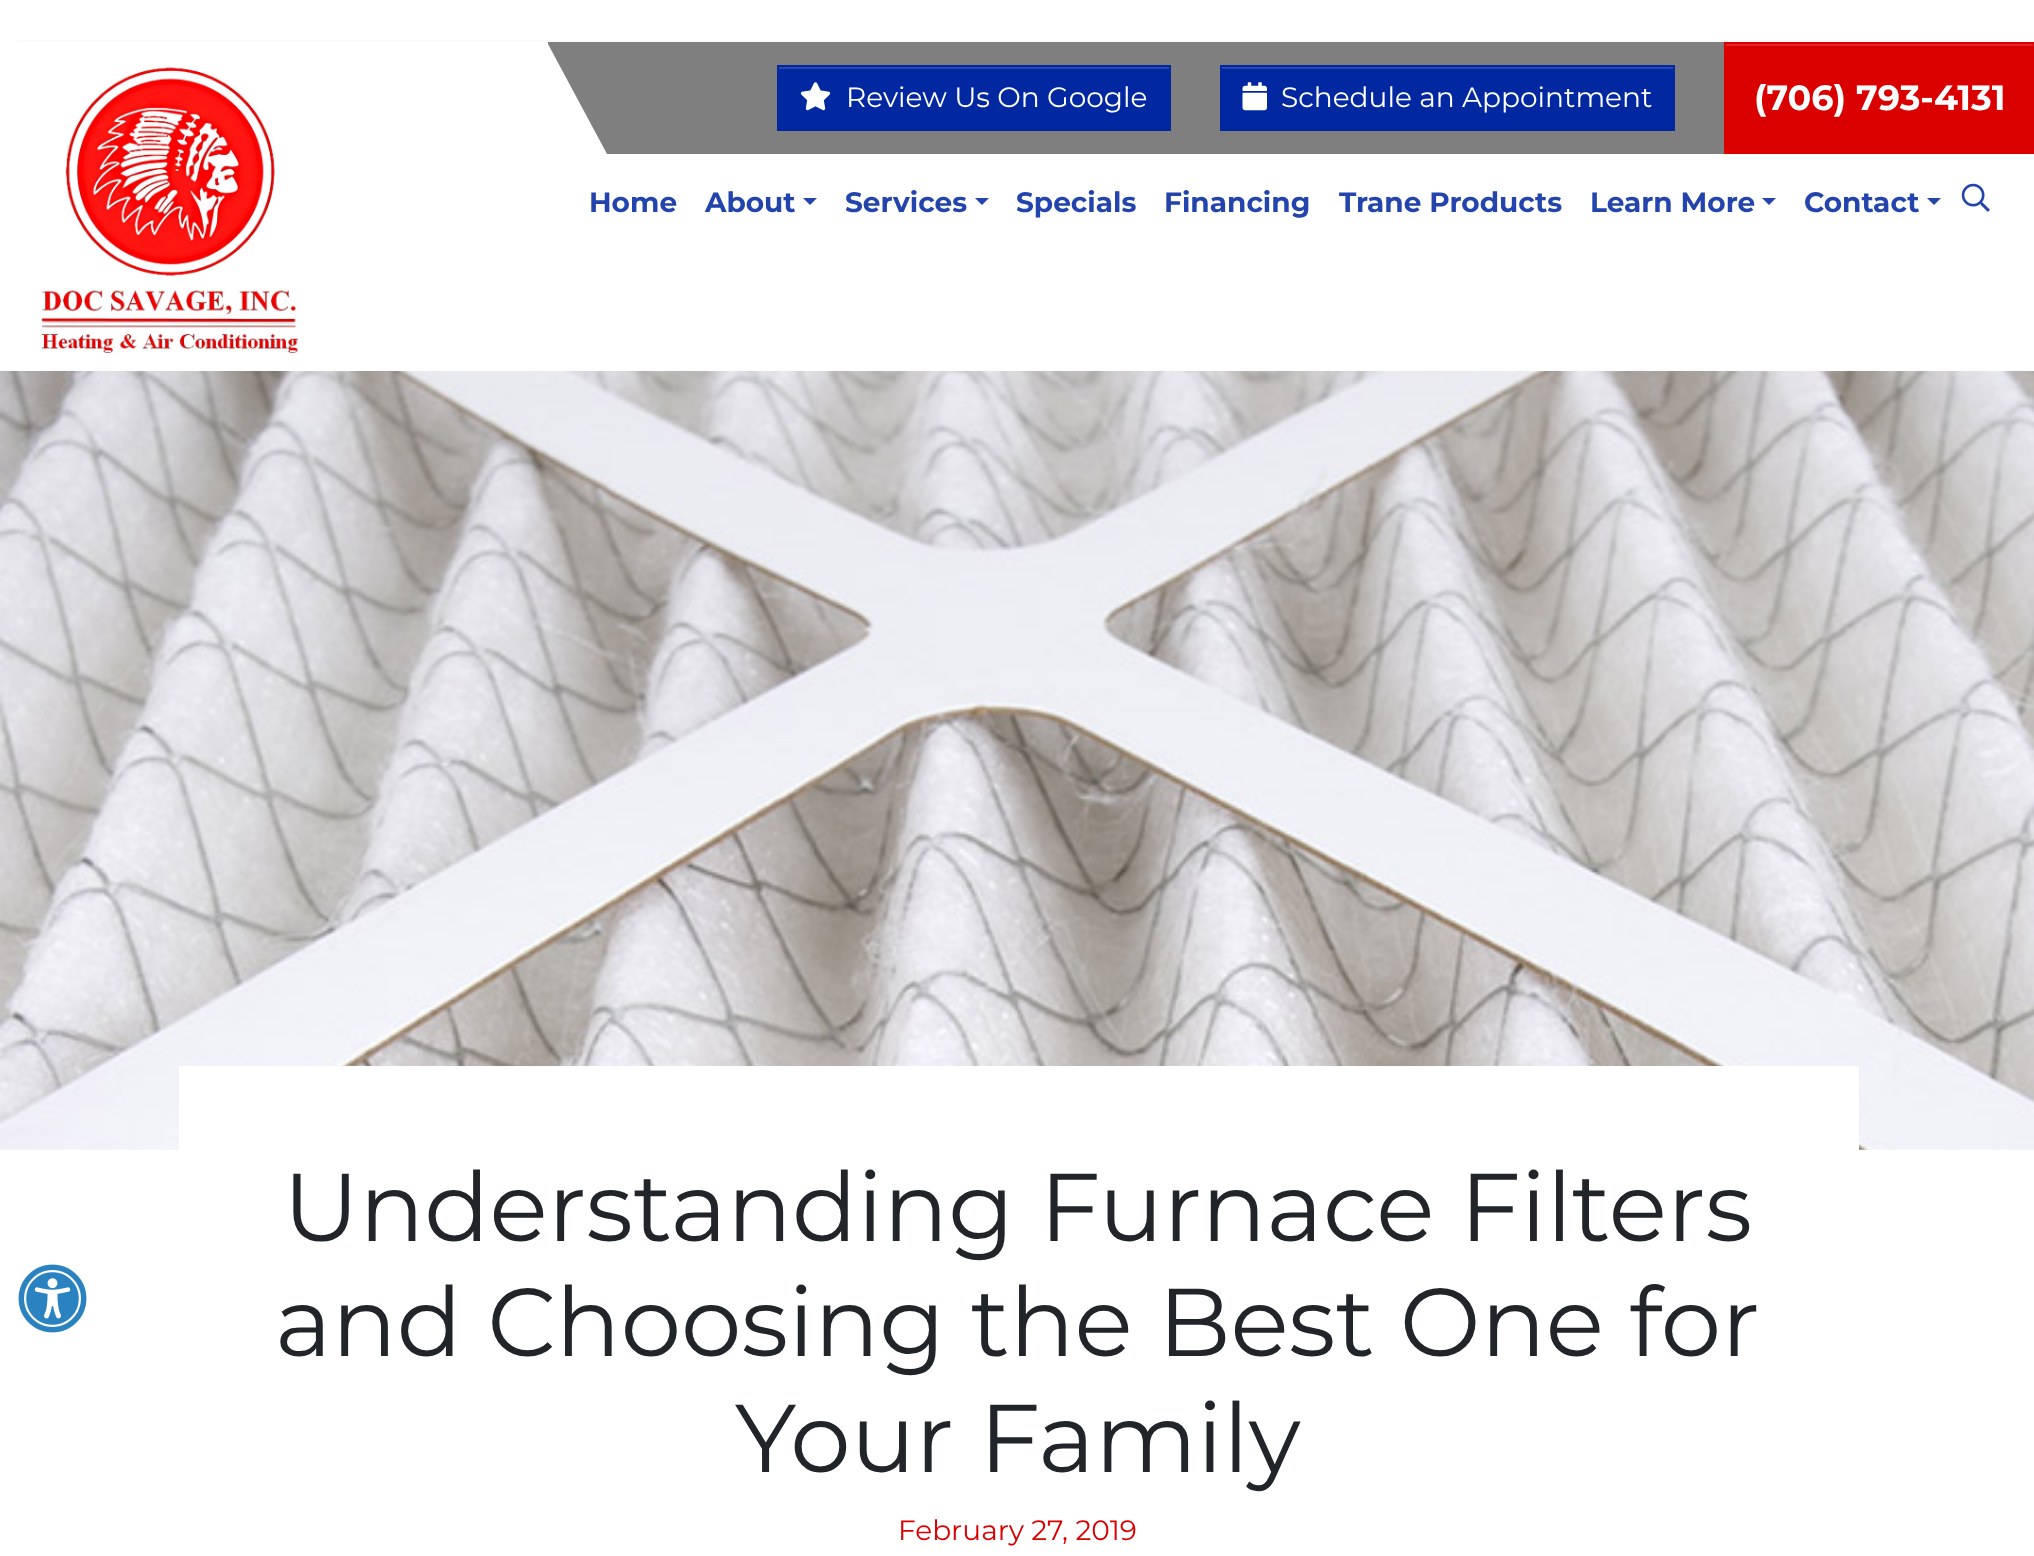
<!DOCTYPE html>
<meta charset="utf-8">
<style>body { margin: 0 } canvas { display: block }</style>
<canvas id="canvas" width="2034" height="1556"></canvas>
<img id="img1" src="images/1.png" hidden>
<img id="img2" src="images/2.png" hidden>
<img id="img3" src="images/3.png" hidden>
<img id="img4" src="images/4.png" hidden>
<img id="img5" src="images/5.png" hidden>
<img id="img6" src="images/6.png" hidden>
<script>
window.onload = function () {
    const canvas = document.getElementById('canvas');
    const context = canvas.getContext('2d');
    context.miterLimit = 4;
    context.fontKerning = 'normal';

    context.fillStyle = 'rgb(255, 255, 255)';
    context.fillRect(0, 0, 2034, 1556);
    context.save();
    context.beginPath();
    context.rect(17, 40, 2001, 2);
    context.clip();
    context.fillStyle = 'rgba(0, 0, 0, 0.15)';
    context.filter = 'blur(14px)';
    context.beginPath();
    context.rect(0, 56, 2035, 329);
    context.fill();
    context.filter = 'none';
    context.restore();
    context.drawImage(document.getElementById('img1'), 39, 67, 261, 287);
    context.fillStyle = 'rgb(127, 127, 127)';
    context.beginPath();
    context.moveTo(548, 42);
    context.lineTo(548, 44);
    context.lineTo(607, 154);
    context.lineTo(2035, 154);
    context.lineTo(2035, 42);
    context.closePath();
    context.fill();
    context.fillStyle = 'rgb(1, 40, 160)';
    context.fillRect(777, 65, 394, 66);
    context.fillStyle = 'rgb(39, 72, 174)';
    context.fillRect(779, 67, 390, 2);
    context.drawImage(document.getElementById('img2'), 800, 82, 31, 29);
    context.fillStyle = 'rgb(1, 40, 160)';
    context.fillRect(1220, 65, 455, 66);
    context.fillStyle = 'rgb(39, 72, 174)';
    context.fillRect(1222, 67, 451, 2);
    context.drawImage(document.getElementById('img3'), 1242, 82, 25, 29);
    context.fillStyle = 'rgb(219, 0, 0)';
    context.fillRect(1726, 46, 307, 106);
    context.fillStyle = 'rgb(224, 38, 38)';
    context.fillRect(1726, 44, 308, 2);
    context.strokeStyle = 'rgb(219, 0, 0)';
    context.lineWidth = 2;
    context.strokeRect(1725, 43, 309, 110);
    context.fillStyle = 'rgb(34, 68, 172)';
    context.beginPath();
    context.moveTo(803, 198);
    context.lineTo(817, 198);
    context.lineTo(810, 205);
    context.closePath();
    context.fill();
    context.beginPath();
    context.moveTo(975, 198);
    context.lineTo(989, 198);
    context.lineTo(982, 205);
    context.closePath();
    context.fill();
    context.beginPath();
    context.moveTo(1762, 198);
    context.lineTo(1776, 198);
    context.lineTo(1769, 205);
    context.closePath();
    context.fill();
    context.beginPath();
    context.moveTo(1927, 198);
    context.lineTo(1941, 198);
    context.lineTo(1934, 205);
    context.closePath();
    context.fill();
    context.drawImage(document.getElementById('img4'), 1961, 183, 29, 29);
    context.drawImage(document.getElementById('img5'), 18, 1264, 69, 69);
    context.drawImage(document.getElementById('img6'), 0, 371, 2034, 779);
    context.fillStyle = 'rgb(255, 255, 255)';
    context.fillRect(179, 1066, 1680, 84);
    context.font = '28px Montserrat';
    context.fillText('Review Us On Google', 846, 107);
    context.fillText('Schedule an Appointment', 1281, 107);
    context.font = 'bold 35px Montserrat';
    context.fillText('(706) 793-4131', 1754, 110);
    context.font = 'bold 28px Montserrat';
    context.fillStyle = 'rgb(34, 68, 172)';
    context.fillText('Home', 589, 212);
    context.fillText('About', 705, 212);
    context.fillText('Services', 845, 212);
    context.fillText('Specials', 1016, 212);
    context.fillText('Financing', 1164, 212);
    context.fillText('Trane Products', 1339, 212);
    context.fillText('Learn More', 1590, 212);
    context.fillText('Contact', 1804, 212);
    context.font = '96.25px Montserrat';
    context.fillStyle = 'rgb(33, 37, 41)';
    context.fillText('Understanding Furnace Filters', 283, 1241);
    context.fillText('and Choosing the Best One for', 275, 1356);
    context.fillText('Your Family', 735, 1472);
    context.font = '28px Montserrat';
    context.fillStyle = 'rgb(219, 0, 0)';
    context.fillText('February 27, 2019', 898, 1540);
};
</script>
